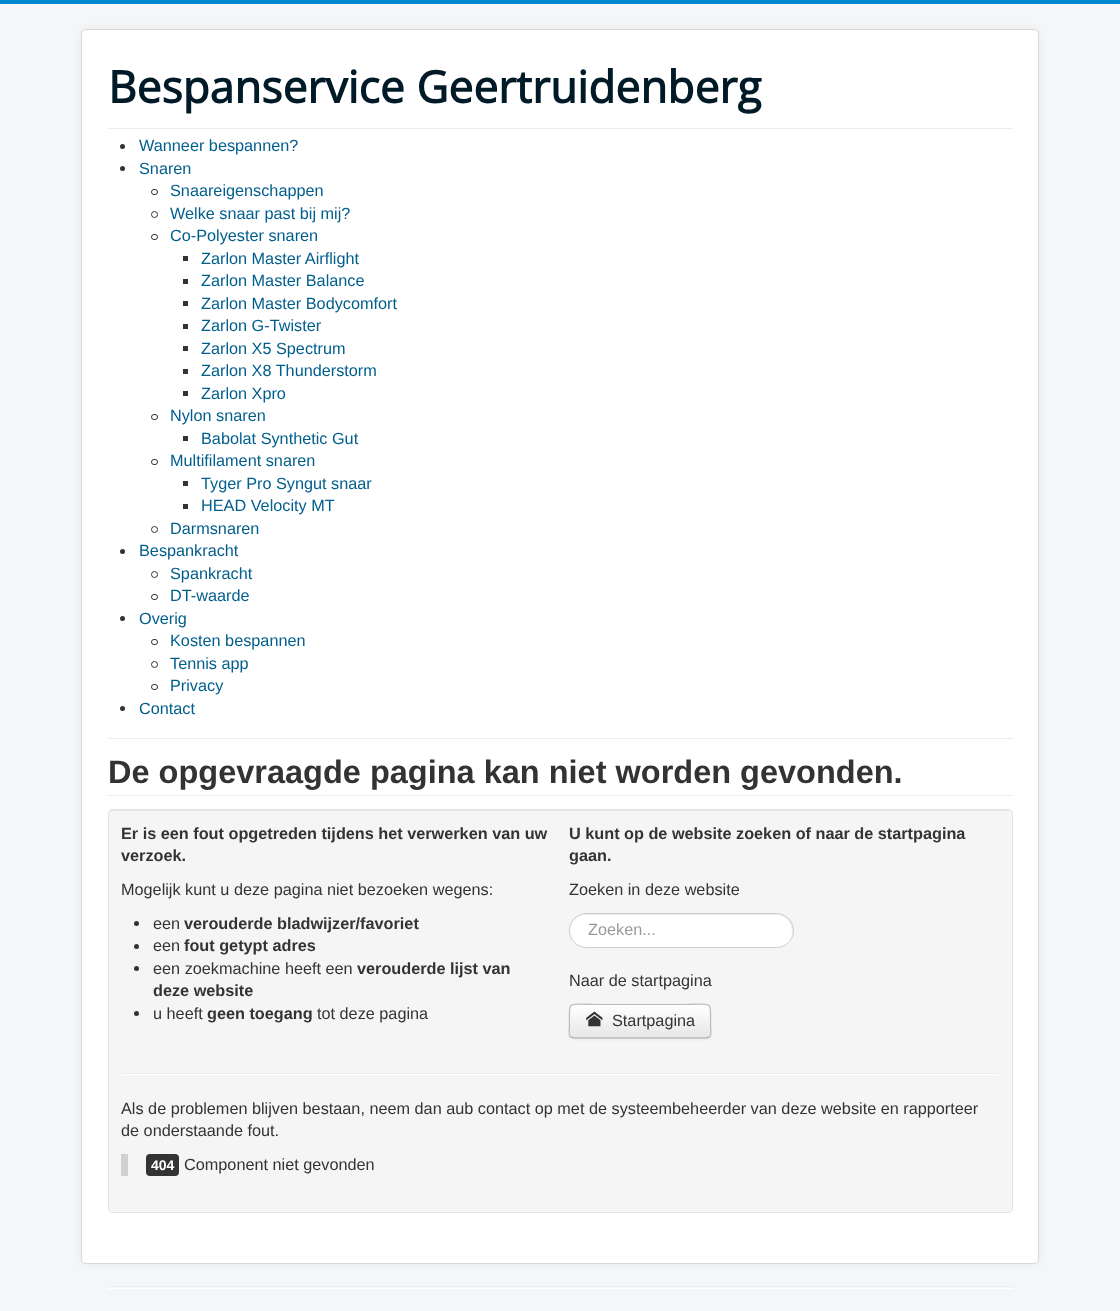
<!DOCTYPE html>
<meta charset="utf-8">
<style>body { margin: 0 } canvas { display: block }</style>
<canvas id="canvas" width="1120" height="1311"></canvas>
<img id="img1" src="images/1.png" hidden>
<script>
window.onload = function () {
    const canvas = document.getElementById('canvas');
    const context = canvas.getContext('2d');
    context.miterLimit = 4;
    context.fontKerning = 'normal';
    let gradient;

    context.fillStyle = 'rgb(244, 246, 247)';
    context.fillRect(0, 0, 1120, 1311);
    context.fillStyle = 'rgb(0, 136, 204)';
    context.fillRect(0, 0, 1120, 4);
    context.fillStyle = 'rgba(0, 0, 0, 0.05)';
    context.filter = 'blur(4px)';
    context.beginPath();
    context.roundRect(81, 29, 958, 1235, 5);
    context.fill();
    context.filter = 'none';
    context.fillStyle = 'rgb(255, 255, 255)';
    context.beginPath();
    context.roundRect(81, 29, 958, 1235, 5);
    context.fill();
    context.beginPath();
    context.roundRect(81.5, 29.5, 957, 1234, 4.5);
    context.strokeStyle = 'rgba(0, 0, 0, 0.15)';
    context.stroke();
    context.fillStyle = 'rgb(236, 236, 236)';
    context.fillRect(108, 128, 905, 1);
    context.fillRect(108, 738, 905, 1);
    context.fillStyle = 'rgb(51, 51, 51)';
    context.beginPath();
    context.arc(122.5, 146.5, 2.5, 0, 2 * Math.PI);
    context.fill();
    context.beginPath();
    context.arc(122.5, 168.5, 2.5, 0, 2 * Math.PI);
    context.fill();
    context.beginPath();
    context.roundRect(151.5, 189.5, 6, 5, 2.5);
    context.strokeStyle = 'rgb(51, 51, 51)';
    context.stroke();
    context.beginPath();
    context.arc(154.5, 214.5, 3, 0, 2 * Math.PI);
    context.stroke();
    context.beginPath();
    context.roundRect(151.5, 234.5, 6, 5, 2.5);
    context.stroke();
    context.fillRect(183, 256, 5, 5);
    context.fillRect(183, 279, 5, 5);
    context.fillRect(183, 301, 5, 5);
    context.fillRect(183, 324, 5, 5);
    context.fillRect(183, 346, 5, 5);
    context.fillRect(183, 369, 5, 5);
    context.fillRect(183, 391, 5, 5);
    context.beginPath();
    context.roundRect(151.5, 414.5, 6, 5, 2.5);
    context.stroke();
    context.fillRect(183, 436, 5, 5);
    context.beginPath();
    context.roundRect(151.5, 459.5, 6, 5, 2.5);
    context.stroke();
    context.fillRect(183, 481, 5, 5);
    context.fillRect(183, 504, 5, 5);
    context.beginPath();
    context.arc(154.5, 529.5, 3, 0, 2 * Math.PI);
    context.stroke();
    context.beginPath();
    context.arc(122.5, 551.5, 2.5, 0, 2 * Math.PI);
    context.fill();
    context.beginPath();
    context.arc(154.5, 574.5, 3, 0, 2 * Math.PI);
    context.stroke();
    context.beginPath();
    context.roundRect(151.5, 594.5, 6, 5, 2.5);
    context.stroke();
    context.beginPath();
    context.arc(122.5, 618.5, 2.5, 0, 2 * Math.PI);
    context.fill();
    context.beginPath();
    context.roundRect(151.5, 639.5, 6, 5, 2.5);
    context.stroke();
    context.beginPath();
    context.arc(154.5, 664.5, 3, 0, 2 * Math.PI);
    context.stroke();
    context.beginPath();
    context.roundRect(151.5, 684.5, 6, 5, 2.5);
    context.stroke();
    context.beginPath();
    context.arc(122.5, 708.5, 2.5, 0, 2 * Math.PI);
    context.fill();
    context.fillStyle = 'rgb(238, 238, 238)';
    context.fillRect(108, 795, 905, 1);
    context.fillStyle = 'rgb(245, 245, 245)';
    context.beginPath();
    context.roundRect(108, 809, 905, 404, 5);
    context.fill();
    context.fillStyle = 'rgb(233, 233, 233)';
    context.beginPath();
    context.moveTo(112, 811);
    context.lineTo(1008, 811);
    context.bezierCurveTo(1010, 811, 1011, 813, 1011, 815);
    context.bezierCurveTo(1011, 812, 1010, 810, 1007, 810);
    context.lineTo(113, 810);
    context.bezierCurveTo(110, 810, 109, 812, 109, 815);
    context.bezierCurveTo(109, 813, 110, 811, 112, 811);
    context.closePath();
    context.fill();
    context.beginPath();
    context.roundRect(108.5, 809.5, 904, 403, 4.5);
    context.strokeStyle = 'rgb(227, 227, 227)';
    context.stroke();
    context.fillStyle = 'rgb(51, 51, 51)';
    context.beginPath();
    context.arc(136.5, 923.5, 2.5, 0, 2 * Math.PI);
    context.fill();
    context.beginPath();
    context.arc(136.5, 946.5, 2.5, 0, 2 * Math.PI);
    context.fill();
    context.beginPath();
    context.arc(136.5, 968.5, 2.5, 0, 2 * Math.PI);
    context.fill();
    context.beginPath();
    context.arc(136.5, 1013.5, 2.5, 0, 2 * Math.PI);
    context.fill();
    context.fillStyle = 'rgb(255, 255, 255)';
    context.beginPath();
    context.roundRect(569, 913, 225, 35, 17.5);
    context.fill();
    context.fillStyle = 'rgb(236, 236, 236)';
    context.beginPath();
    context.moveTo(586, 915);
    context.lineTo(776, 915);
    context.bezierCurveTo(785, 915, 792, 922, 792, 931);
    context.bezierCurveTo(792, 934, 791, 937, 790, 940);
    context.bezierCurveTo(792, 936, 794, 931, 793, 927);
    context.bezierCurveTo(791, 919, 784, 914, 777, 914);
    context.lineTo(618, 914);
    context.bezierCurveTo(607, 914, 569, 907, 570, 930);
    context.bezierCurveTo(570, 922, 577, 915, 586, 915);
    context.closePath();
    context.fill();
    context.beginPath();
    context.roundRect(569.5, 913.5, 224, 34, 17);
    context.strokeStyle = 'rgb(204, 204, 204)';
    context.stroke();
    context.fillStyle = 'rgba(0, 0, 0, 0.05)';
    context.filter = 'blur(1px)';
    context.beginPath();
    context.roundRect(569, 1005, 142, 35, 5);
    context.fill();
    context.filter = 'none';
    context.fillStyle = 'rgb(245, 245, 245)';
    context.beginPath();
    context.roundRect(569, 1004, 142, 35, 5);
    context.fill();
    context.save();
    context.beginPath();
    context.roundRect(569, 1004, 142, 35, 5);
    context.clip();
    gradient = context.createLinearGradient(640, 1005, 640, 1038);
    gradient.addColorStop(0, 'rgb(255, 255, 255)');
    gradient.addColorStop(1, 'rgb(230, 230, 230)');
    context.fillStyle = gradient;
    context.fillRect(569, 1005, 142, 33);
    context.restore();
    context.beginPath();
    context.moveTo(709.5, 1037);
    context.lineTo(706.5, 1038);
    context.lineTo(596, 1038);
    context.lineTo(574, 1038);
    context.lineTo(570.5, 1037);
    context.strokeStyle = 'rgb(162, 162, 162)';
    context.lineWidth = 1.2;
    context.stroke();
    context.beginPath();
    context.moveTo(570.5, 1037);
    context.bezierCurveTo(568, 1034, 569.5, 1028.5, 569.5, 1025.5);
    context.bezierCurveTo(569.5, 999, 566, 1004.5, 596, 1004.5);
    context.lineTo(684, 1004.5);
    context.bezierCurveTo(714, 1004.5, 710.5, 999, 710.5, 1025.5);
    context.bezierCurveTo(710.5, 1028.5, 712, 1034, 709.5, 1037);
    context.strokeStyle = 'rgb(187, 187, 187)';
    context.stroke();
    context.drawImage(document.getElementById('img1'), 586, 1011, 17, 16);
    context.fillStyle = 'rgb(238, 238, 238)';
    context.fillRect(121, 1073, 878, 1);
    context.fillStyle = 'rgb(255, 255, 255)';
    context.fillRect(121, 1074, 878, 1);
    context.fillStyle = 'rgb(208, 208, 208)';
    context.fillRect(121, 1154, 7, 22);
    context.fillStyle = 'rgb(51, 51, 51)';
    context.beginPath();
    context.roundRect(146, 1154, 33, 22, 4);
    context.fill();
    context.fillStyle = 'rgb(238, 238, 238)';
    context.fillRect(108, 1286, 905, 1);
    context.fillStyle = 'rgb(255, 255, 255)';
    context.fillRect(108, 1288, 905, 1);
    context.font = 'bold 44.25px Open Sans';
    context.fillStyle = 'rgb(0, 26, 39)';
    context.fillText('Bespanservice Geertruidenberg', 108, 103);
    context.font = '16.25px Liberation Sans';
    context.fillStyle = 'rgb(0, 94, 141)';
    context.fillText('Wanneer bespannen?', 139, 151);
    context.fillText('Snaren', 139, 174);
    context.fillText('Snaareigenschappen', 170, 196);
    context.fillText('Welke snaar past bij mij?', 170, 219);
    context.fillText('Co-Polyester snaren', 170, 241);
    context.fillText('Zarlon Master Airflight', 201, 264);
    context.fillText('Zarlon Master Balance', 201, 286);
    context.fillText('Zarlon Master Bodycomfort', 201, 309);
    context.fillText('Zarlon G-Twister', 201, 331);
    context.fillText('Zarlon X5 Spectrum', 201, 354);
    context.fillText('Zarlon X8 Thunderstorm', 201, 376);
    context.fillText('Zarlon Xpro', 201, 399);
    context.fillText('Nylon snaren', 170, 421);
    context.fillText('Babolat Synthetic Gut', 201, 444);
    context.fillText('Multifilament snaren', 170, 466);
    context.fillText('Tyger Pro Syngut snaar', 201, 489);
    context.fillText('HEAD Velocity MT', 201, 511);
    context.fillText('Darmsnaren', 170, 534);
    context.fillText('Bespankracht', 139, 556);
    context.fillText('Spankracht', 170, 579);
    context.fillText('DT-waarde', 170, 601);
    context.fillText('Overig', 139, 624);
    context.fillText('Kosten bespannen', 170, 646);
    context.fillText('Tennis app', 170, 669);
    context.fillText('Privacy', 170, 691);
    context.fillText('Contact', 139, 714);
    context.font = 'bold 32.5px Liberation Sans';
    context.fillStyle = 'rgb(51, 51, 51)';
    context.fillText('De opgevraagde pagina kan niet worden gevonden.', 108, 783);
    context.font = 'bold 16.25px Liberation Sans';
    context.fillText('Er is een fout opgetreden tijdens het verwerken van uw', 121, 839);
    context.fillText('verzoek.', 121, 861);
    context.font = '16.25px Liberation Sans';
    context.fillText('Mogelijk kunt u deze pagina niet bezoeken wegens:', 121, 895);
    context.fillText('een', 153, 929);
    context.font = 'bold 16.25px Liberation Sans';
    context.fillText('verouderde bladwijzer/favoriet', 184, 929);
    context.font = '16.25px Liberation Sans';
    context.fillText('een', 153, 951);
    context.font = 'bold 16.25px Liberation Sans';
    context.fillText('fout getypt adres', 184, 951);
    context.font = '16.25px Liberation Sans';
    context.fillText('een zoekmachine heeft een', 153, 974);
    context.font = 'bold 16.25px Liberation Sans';
    context.fillText('verouderde lijst van', 357, 974);
    context.fillText('deze website', 153, 996);
    context.font = '16.25px Liberation Sans';
    context.fillText('u heeft', 153, 1019);
    context.font = 'bold 16.25px Liberation Sans';
    context.fillText('geen toegang', 207, 1019);
    context.font = '16.25px Liberation Sans';
    context.fillText('tot deze pagina', 317, 1019);
    context.font = 'bold 16.25px Liberation Sans';
    context.fillText('U kunt op de website zoeken of naar de startpagina', 569, 839);
    context.fillText('gaan.', 569, 861);
    context.font = '16.25px Liberation Sans';
    context.fillText('Zoeken in deze website', 569, 895);
    context.fillStyle = 'rgb(153, 153, 153)';
    context.fillText('Zoeken...', 588, 935);
    context.fillStyle = 'rgb(51, 51, 51)';
    context.fillText('Naar de startpagina', 569, 986);
    context.fillText('Startpagina', 612, 1026);
    context.fillText('Als de problemen blijven bestaan, neem dan aub contact op met de systeembeheerder van deze website en rapporteer', 121, 1114);
    context.fillText('de onderstaande fout.', 121, 1136);
    context.font = 'bold 14px Liberation Sans';
    context.fillStyle = 'rgb(255, 255, 255)';
    context.fillText('404', 151, 1170);
    context.font = '16.25px Liberation Sans';
    context.fillStyle = 'rgb(51, 51, 51)';
    context.fillText('Component niet gevonden', 184, 1170);
};
</script>
